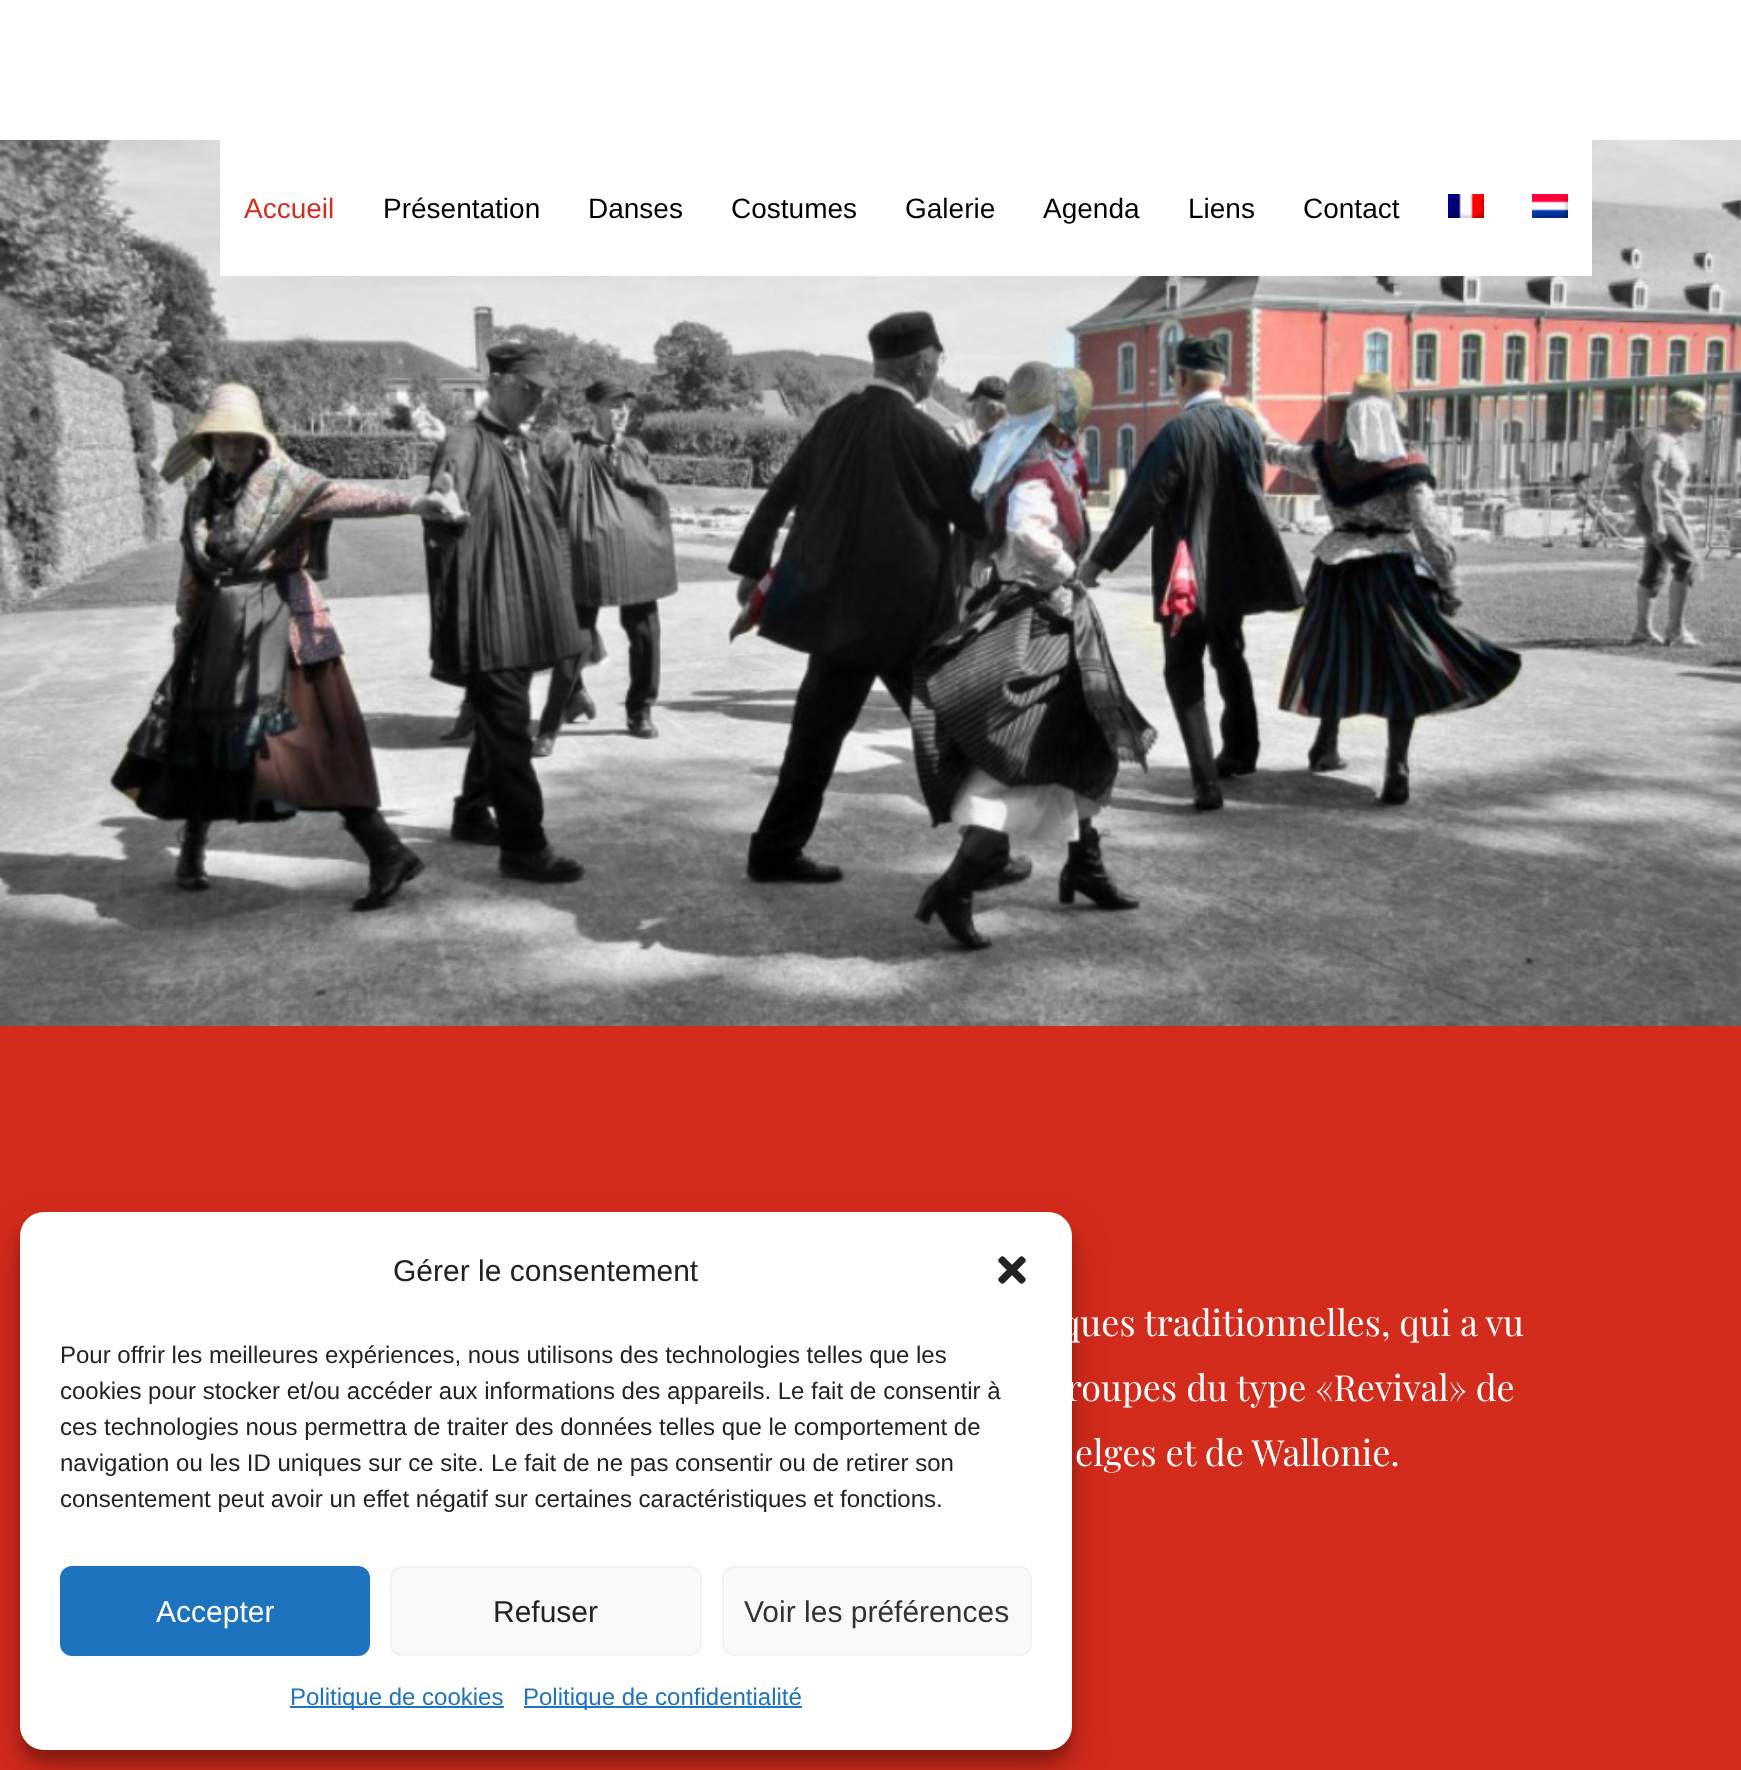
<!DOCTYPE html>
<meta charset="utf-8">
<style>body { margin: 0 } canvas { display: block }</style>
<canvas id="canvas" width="1741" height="1770"></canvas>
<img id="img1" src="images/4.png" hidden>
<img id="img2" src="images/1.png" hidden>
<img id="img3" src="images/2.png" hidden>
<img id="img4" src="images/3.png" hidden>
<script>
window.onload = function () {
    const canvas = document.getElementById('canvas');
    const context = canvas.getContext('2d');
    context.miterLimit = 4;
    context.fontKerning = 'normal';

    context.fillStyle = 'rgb(255, 255, 255)';
    context.fillRect(0, 0, 1741, 1770);
    context.drawImage(document.getElementById('img1'), 0, 140, 1741, 886);
    context.fillRect(220, 140, 1372, 136);
    context.drawImage(document.getElementById('img2'), 1448, 194, 36, 24);
    context.drawImage(document.getElementById('img3'), 1532, 194, 36, 24);
    context.fillStyle = 'rgb(211, 43, 28)';
    context.fillRect(0, 1026, 1741, 744);
    context.fillStyle = 'rgba(0, 0, 0, 0.23)';
    context.filter = 'blur(6px)';
    context.beginPath();
    context.roundRect(20, 1224, 1052, 538, 24);
    context.fill();
    context.filter = 'none';
    context.fillStyle = 'rgba(0, 0, 0, 0.19)';
    context.filter = 'blur(20px)';
    context.beginPath();
    context.roundRect(20, 1232, 1052, 538, 24);
    context.fill();
    context.filter = 'none';
    context.fillStyle = 'rgb(255, 255, 255)';
    context.beginPath();
    context.roundRect(20, 1212, 1052, 538, 24);
    context.fill();
    context.drawImage(document.getElementById('img4'), 998, 1256, 28, 28);
    context.fillStyle = 'rgb(30, 115, 190)';
    context.beginPath();
    context.roundRect(61, 1567, 308, 88, 11);
    context.fill();
    context.strokeStyle = 'rgb(30, 115, 190)';
    context.lineWidth = 2;
    context.stroke();
    context.fillStyle = 'rgb(249, 249, 249)';
    context.beginPath();
    context.roundRect(391, 1567, 310, 88, 11);
    context.fill();
    context.strokeStyle = 'rgb(242, 242, 242)';
    context.stroke();
    context.beginPath();
    context.roundRect(723, 1567, 308, 88, 11);
    context.fill();
    context.stroke();
    context.fillStyle = 'rgb(30, 115, 190)';
    context.fillRect(290, 1706, 214, 2);
    context.fillRect(524, 1706, 278, 2);
    context.font = '28px Liberation Sans';
    context.fillStyle = 'rgb(211, 43, 28)';
    context.fillText('Accueil', 244, 218);
    context.fillStyle = 'rgb(0, 0, 0)';
    context.fillText('Présentation', 383, 218);
    context.fillText('Danses', 588, 218);
    context.fillText('Costumes', 731, 218);
    context.fillText('Galerie', 905, 218);
    context.fillText('Agenda', 1043, 218);
    context.fillText('Liens', 1188, 218);
    context.fillText('Contact', 1303, 218);
    context.font = '30px Liberation Sans';
    context.fillStyle = 'rgb(34, 34, 34)';
    context.fillText('Gérer le consentement', 393, 1281);
    context.font = '24px Liberation Sans';
    context.fillText('Pour offrir les meilleures expériences, nous utilisons des technologies telles que les', 60, 1363);
    context.fillText('cookies pour stocker et/ou accéder aux informations des appareils. Le fait de consentir à', 60, 1399);
    context.fillText('ces technologies nous permettra de traiter des données telles que le comportement de', 60, 1435);
    context.fillText('navigation ou les ID uniques sur ce site. Le fait de ne pas consentir ou de retirer son', 60, 1471);
    context.fillText('consentement peut avoir un effet négatif sur certaines caractéristiques et fonctions.', 60, 1507);
    context.font = '30px Liberation Sans';
    context.fillStyle = 'rgb(255, 255, 255)';
    context.fillText('Accepter', 156, 1622);
    context.fillStyle = 'rgb(34, 34, 34)';
    context.fillText('Refuser', 493, 1622);
    context.fillStyle = 'rgb(51, 51, 51)';
    context.fillText('Voir les préférences', 744, 1622);
    context.font = '24px Liberation Sans';
    context.fillStyle = 'rgb(30, 115, 190)';
    context.fillText('Politique de cookies', 290, 1705);
    context.fillText('Politique de confidentialité', 523, 1705);
    context.font = '36px Playfair Display';
    context.fillStyle = 'rgb(255, 255, 255)';
    context.fillText('ques traditionnelles, qui a vu', 1060, 1336);
    context.fillText('roupes du type «Revival» de', 1066, 1401);
    context.fillText('elges et de Wallonie.', 1075, 1466);
};
</script>
